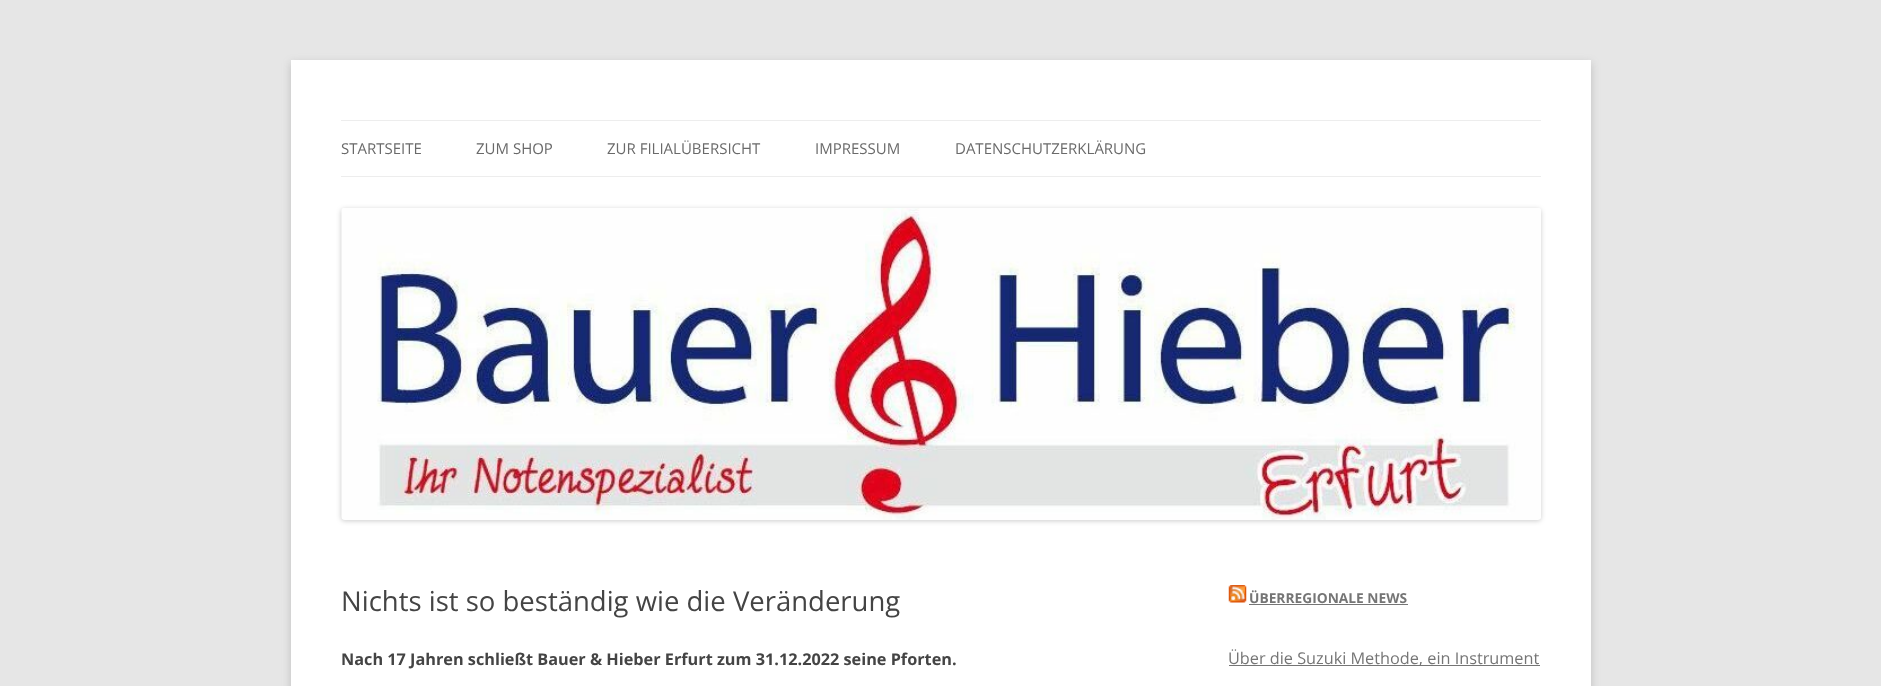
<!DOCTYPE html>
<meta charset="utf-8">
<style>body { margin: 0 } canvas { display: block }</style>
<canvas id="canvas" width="1881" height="686"></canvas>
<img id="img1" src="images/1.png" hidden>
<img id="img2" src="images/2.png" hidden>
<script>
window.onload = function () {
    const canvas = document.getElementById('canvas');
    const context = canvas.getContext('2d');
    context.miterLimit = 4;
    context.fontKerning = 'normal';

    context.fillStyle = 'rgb(230, 230, 230)';
    context.fillRect(0, 0, 1881, 686);
    context.fillStyle = 'rgba(100, 100, 100, 0.3)';
    context.filter = 'blur(4px)';
    context.beginPath();
    context.rect(291, 63, 1300, 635);
    context.fill();
    context.filter = 'none';
    context.fillStyle = 'rgb(255, 255, 255)';
    context.fillRect(291, 60, 1300, 626);
    context.fillStyle = 'rgb(237, 237, 237)';
    context.fillRect(341, 120, 1200, 1);
    context.fillRect(341, 176, 1200, 1);
    context.fillStyle = 'rgba(0, 0, 0, 0.2)';
    context.filter = 'blur(2.5px)';
    context.beginPath();
    context.roundRect(341, 209, 1200, 312, 4);
    context.fill();
    context.filter = 'none';
    context.drawImage(document.getElementById('img1'), 341, 208, 1200, 312);
    context.drawImage(document.getElementById('img2'), 1228, 585, 19, 18);
    context.fillStyle = 'rgb(117, 117, 117)';
    context.fillRect(1249, 604, 159, 1);
    context.fillRect(1229, 665, 311, 1);
    context.font = '15px Open Sans';
    context.fillStyle = 'rgb(106, 106, 106)';
    context.fillText('STARTSEITE', 341, 154);
    context.fillText('ZUM SHOP', 476, 154);
    context.fillText('ZUR FILIALÜBERSICHT', 607, 154);
    context.fillText('IMPRESSUM', 815, 154);
    context.fillText('DATENSCHUTZERKLÄRUNG', 955, 154);
    context.font = '27.5px Open Sans';
    context.fillStyle = 'rgb(68, 68, 68)';
    context.fillText('Nichts ist so beständig wie die Veränderung', 341, 611);
    context.font = 'bold 16.25px Open Sans';
    context.fillText('Nach 17 Jahren schließt Bauer & Hieber Erfurt zum 31.12.2022 seine Pforten.', 341, 665);
    context.font = 'bold 13.75px Open Sans';
    context.fillStyle = 'rgb(117, 117, 117)';
    context.fillText('ÜBERREGIONALE NEWS', 1249, 603);
    context.font = '16.25px Open Sans';
    context.fillText('Über die Suzuki Methode, ein Instrument', 1228, 664);
};
</script>
